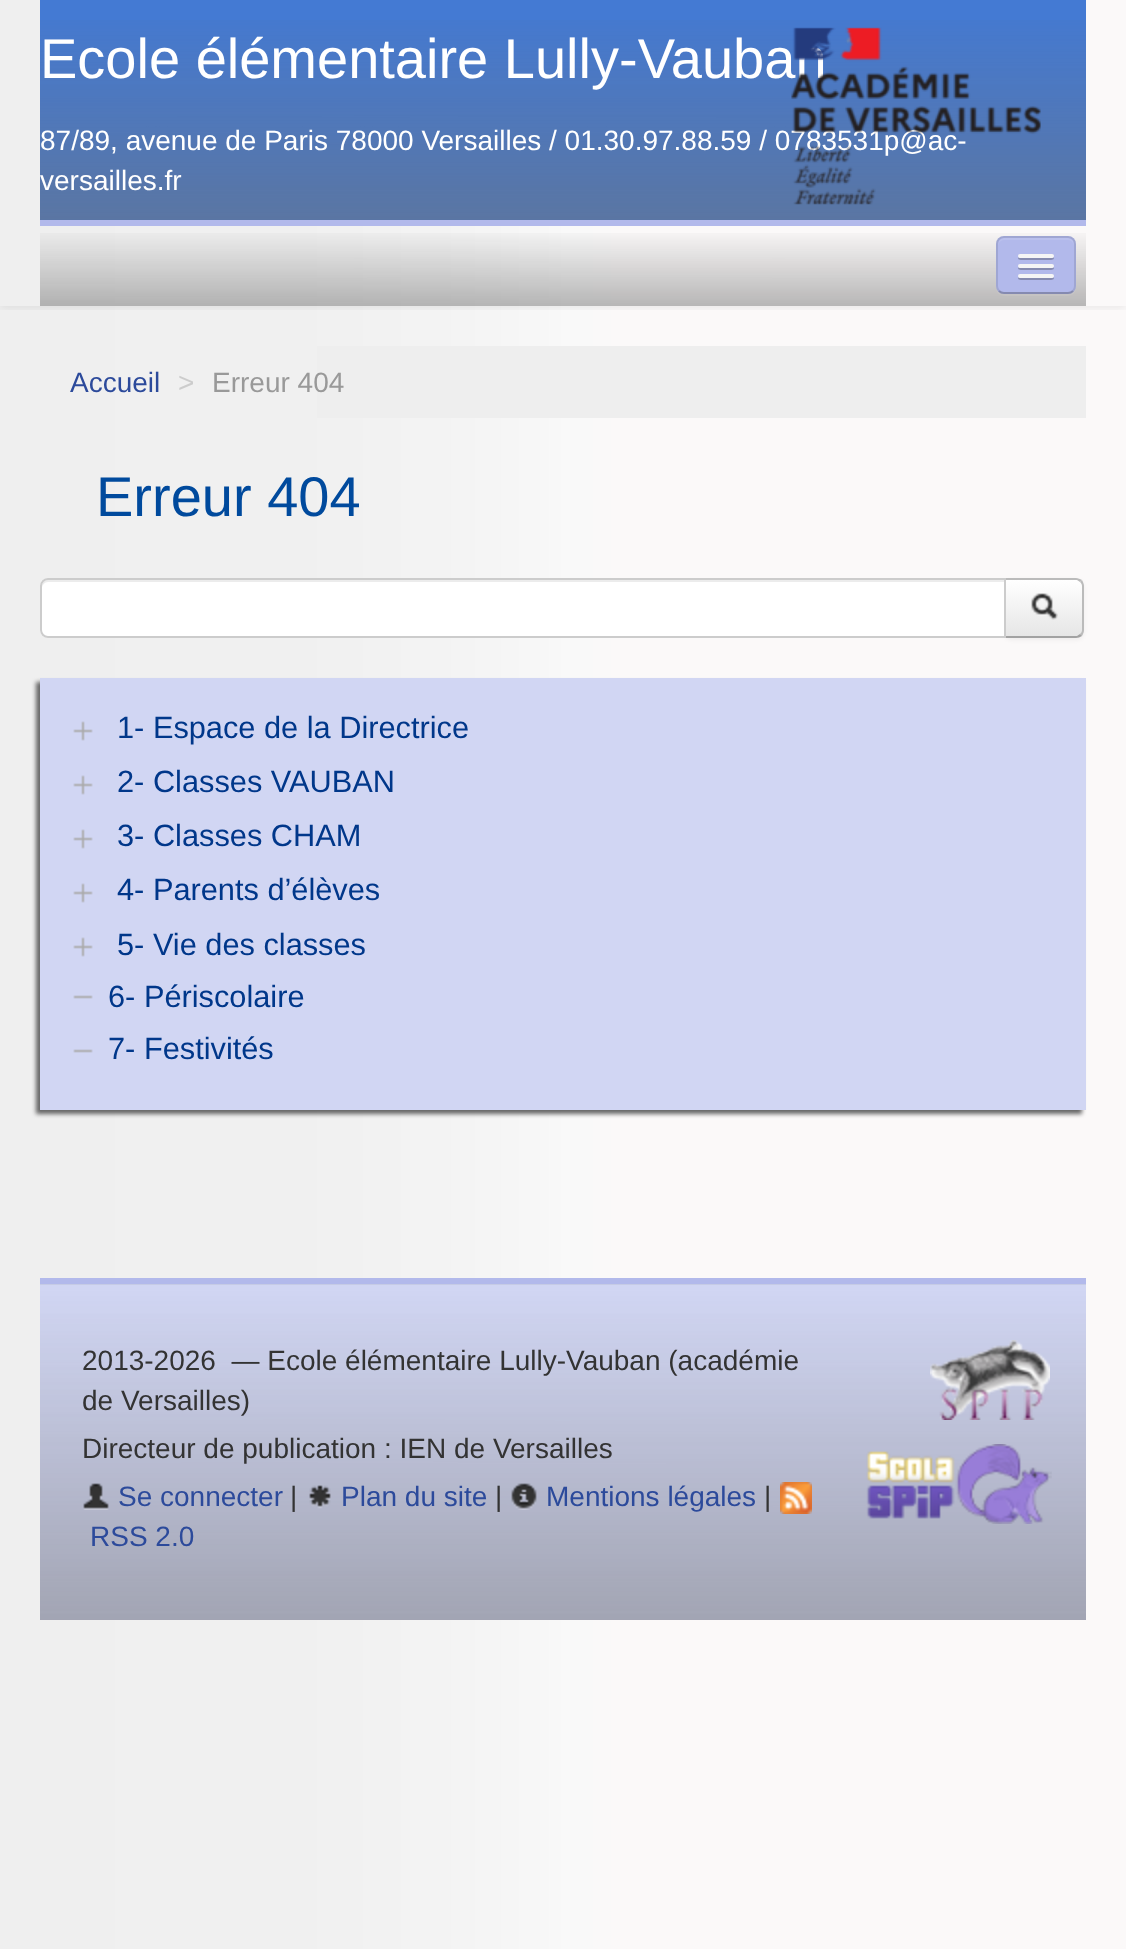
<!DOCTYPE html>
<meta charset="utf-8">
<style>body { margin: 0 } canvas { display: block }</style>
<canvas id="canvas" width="1126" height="1949"></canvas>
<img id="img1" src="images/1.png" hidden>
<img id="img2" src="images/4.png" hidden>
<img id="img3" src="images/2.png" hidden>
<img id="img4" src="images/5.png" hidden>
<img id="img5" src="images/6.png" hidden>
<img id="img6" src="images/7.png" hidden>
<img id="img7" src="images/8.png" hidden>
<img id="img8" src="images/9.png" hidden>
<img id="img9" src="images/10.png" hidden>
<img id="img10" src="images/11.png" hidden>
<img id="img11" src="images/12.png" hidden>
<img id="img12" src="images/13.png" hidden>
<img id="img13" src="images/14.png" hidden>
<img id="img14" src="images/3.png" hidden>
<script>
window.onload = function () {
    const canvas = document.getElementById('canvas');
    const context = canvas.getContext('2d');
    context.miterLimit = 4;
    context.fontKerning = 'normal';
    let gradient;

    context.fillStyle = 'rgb(255, 255, 255)';
    context.fillRect(0, 0, 1126, 1949);
    context.drawImage(document.getElementById('img1'), 0, 0, 1126, 1949);
    context.drawImage(document.getElementById('img2'), 40, 233, 1046, 73);
    context.save();
    context.beginPath();
    context.rect(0, 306, 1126, 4);
    context.clip();
    context.fillStyle = 'rgba(0, 0, 0, 0.07)';
    context.filter = 'blur(4px)';
    context.beginPath();
    context.rect(0, 228, 1126, 80);
    context.fill();
    context.filter = 'none';
    context.restore();
    context.fillStyle = 'rgb(68, 122, 211)';
    context.fillRect(40, 0, 1046, 220);
    context.drawImage(document.getElementById('img3'), 40, 20, 1046, 200);
    context.fillStyle = 'rgb(178, 185, 235)';
    context.fillRect(40, 220, 1046, 6);
    context.fillStyle = 'rgba(255, 255, 255, 0.07)';
    context.beginPath();
    context.moveTo(996, 286);
    context.bezierCurveTo(996, 298, 1005, 296, 1015, 296);
    context.lineTo(1057, 296);
    context.bezierCurveTo(1067, 296, 1076, 298, 1076, 286);
    context.bezierCurveTo(1076, 290, 1072, 294, 1068, 294);
    context.lineTo(1004, 294);
    context.bezierCurveTo(1000, 294, 996, 290, 996, 286);
    context.closePath();
    context.fill();
    context.fillStyle = 'rgb(178, 185, 235)';
    context.beginPath();
    context.roundRect(996, 236, 80, 58, 8);
    context.fill();
    context.fillStyle = 'rgb(186, 192, 237)';
    context.beginPath();
    context.moveTo(1004, 240);
    context.lineTo(1068, 240);
    context.bezierCurveTo(1071, 240, 1074, 243, 1074, 246);
    context.bezierCurveTo(1074, 236, 1066, 238, 1057, 238);
    context.lineTo(1015, 238);
    context.bezierCurveTo(1006, 238, 998, 236, 998, 246);
    context.bezierCurveTo(998, 243, 1001, 240, 1004, 240);
    context.closePath();
    context.fill();
    context.beginPath();
    context.moveTo(1073, 291);
    context.bezierCurveTo(1071.5, 292.5, 1070, 293, 1068, 293);
    context.lineTo(1004, 293);
    context.bezierCurveTo(1002, 293, 1000.5, 292.5, 999, 291);
    context.strokeStyle = 'rgba(0, 0, 0, 0.25)';
    context.lineWidth = 2;
    context.stroke();
    context.beginPath();
    context.moveTo(999, 291);
    context.bezierCurveTo(997.5, 289.5, 997, 288, 997, 286);
    context.lineTo(997, 244);
    context.bezierCurveTo(997, 242, 997.5, 240.5, 999, 239);
    context.bezierCurveTo(1000.5, 237.5, 1002, 237, 1004, 237);
    context.lineTo(1068, 237);
    context.bezierCurveTo(1070, 237, 1071.5, 237.5, 1073, 239);
    context.bezierCurveTo(1074.5, 240.5, 1075, 242, 1075, 244);
    context.lineTo(1075, 286);
    context.bezierCurveTo(1075, 288, 1074.5, 289.5, 1073, 291);
    context.strokeStyle = 'rgba(0, 0, 0, 0.1)';
    context.stroke();
    context.fillStyle = 'rgb(134, 139, 176)';
    context.beginPath();
    context.moveTo(1018.5, 257);
    context.bezierCurveTo(1016, 261, 1025, 260, 1025.5, 260);
    context.lineTo(1046.5, 260);
    context.bezierCurveTo(1047, 260, 1056, 261, 1053.5, 257);
    context.bezierCurveTo(1053.5, 257.5, 1052.5, 258, 1052, 258);
    context.lineTo(1020, 258);
    context.bezierCurveTo(1019.5, 258, 1018.5, 257.5, 1018.5, 257);
    context.closePath();
    context.fill();
    context.fillStyle = 'rgb(245, 245, 245)';
    context.beginPath();
    context.roundRect(1018, 254, 36, 4, 2);
    context.fill();
    context.fillStyle = 'rgb(134, 139, 176)';
    context.beginPath();
    context.moveTo(1018.5, 267);
    context.bezierCurveTo(1016, 271, 1025, 270, 1025.5, 270);
    context.lineTo(1046.5, 270);
    context.bezierCurveTo(1047, 270, 1056, 271, 1053.5, 267);
    context.bezierCurveTo(1053.5, 267.5, 1052.5, 268, 1052, 268);
    context.lineTo(1020, 268);
    context.bezierCurveTo(1019.5, 268, 1018.5, 267.5, 1018.5, 267);
    context.closePath();
    context.fill();
    context.fillStyle = 'rgb(245, 245, 245)';
    context.beginPath();
    context.roundRect(1018, 264, 36, 4, 2);
    context.fill();
    context.fillStyle = 'rgb(134, 139, 176)';
    context.beginPath();
    context.moveTo(1018.5, 277);
    context.bezierCurveTo(1016, 281, 1025, 280, 1025.5, 280);
    context.lineTo(1046.5, 280);
    context.bezierCurveTo(1047, 280, 1056, 281, 1053.5, 277);
    context.bezierCurveTo(1053.5, 277.5, 1052.5, 278, 1052, 278);
    context.lineTo(1020, 278);
    context.bezierCurveTo(1019.5, 278, 1018.5, 277.5, 1018.5, 277);
    context.closePath();
    context.fill();
    context.fillStyle = 'rgb(245, 245, 245)';
    context.beginPath();
    context.roundRect(1018, 274, 36, 4, 2);
    context.fill();
    context.fillStyle = 'rgb(238, 238, 238)';
    context.fillRect(317, 346, 769, 72);
    context.fillStyle = 'rgba(0, 0, 0, 0.05)';
    context.filter = 'blur(2px)';
    context.beginPath();
    context.roundRect(1004, 580, 80, 60, 8);
    context.fill();
    context.filter = 'none';
    context.save();
    context.beginPath();
    context.roundRect(1004, 578, 80, 60, [0, 8, 8, 0]);
    context.clip();
    gradient = context.createLinearGradient(1044, 580, 1044, 636);
    gradient.addColorStop(0, 'rgb(255, 255, 255)');
    gradient.addColorStop(1, 'rgb(230, 230, 230)');
    context.fillStyle = gradient;
    context.fillRect(1006, 580, 78, 56);
    context.restore();
    context.fillStyle = 'rgb(187, 187, 187)';
    context.beginPath();
    context.moveTo(1004, 578);
    context.lineTo(1006, 580);
    context.lineTo(1077, 580);
    context.lineTo(1080, 582);
    context.lineTo(1082, 580);
    context.bezierCurveTo(1080, 579, 1078, 578, 1076, 578);
    context.closePath();
    context.fill();
    context.beginPath();
    context.moveTo(1084, 630);
    context.lineTo(1084, 586);
    context.bezierCurveTo(1084, 584, 1083, 582, 1082, 580);
    context.lineTo(1080, 582);
    context.bezierCurveTo(1081, 583, 1082, 584, 1082, 586);
    context.lineTo(1082, 630);
    context.bezierCurveTo(1082, 632, 1081, 633, 1080, 634);
    context.lineTo(1082, 636);
    context.bezierCurveTo(1083, 634, 1084, 632, 1084, 630);
    context.closePath();
    context.fill();
    context.fillStyle = 'rgb(162, 162, 162)';
    context.beginPath();
    context.moveTo(1076, 638);
    context.bezierCurveTo(1078, 638, 1080, 637, 1082, 636);
    context.lineTo(1080, 634);
    context.lineTo(1077, 636);
    context.lineTo(1006, 636);
    context.lineTo(1004, 638);
    context.closePath();
    context.fill();
    context.fillStyle = 'rgb(255, 255, 255)';
    context.beginPath();
    context.roundRect(40, 578, 966, 60, [8, 0, 0, 8]);
    context.fill();
    context.fillStyle = 'rgb(236, 236, 236)';
    context.beginPath();
    context.moveTo(48, 582);
    context.lineTo(1004, 582);
    context.lineTo(1004, 580);
    context.lineTo(48, 580);
    context.bezierCurveTo(43, 580, 42, 584, 42, 588);
    context.bezierCurveTo(42, 585, 45, 582, 48, 582);
    context.closePath();
    context.fill();
    context.beginPath();
    context.roundRect(41, 579, 964, 58, [7, 0, 0, 7]);
    context.strokeStyle = 'rgb(204, 204, 204)';
    context.stroke();
    context.drawImage(document.getElementById('img4'), 1031, 593, 27, 27);
    context.fillStyle = 'rgb(102, 102, 102)';
    context.filter = 'blur(2px)';
    context.beginPath();
    context.rect(36, 682, 1046, 432);
    context.fill();
    context.filter = 'none';
    context.fillStyle = 'rgb(209, 214, 243)';
    context.fillRect(40, 678, 1046, 432);
    context.drawImage(document.getElementById('img5'), 73, 721, 20, 20);
    context.drawImage(document.getElementById('img5'), 73, 775, 20, 20);
    context.drawImage(document.getElementById('img5'), 73, 829, 20, 20);
    context.drawImage(document.getElementById('img5'), 73, 883, 20, 20);
    context.drawImage(document.getElementById('img5'), 73, 937, 20, 20);
    context.drawImage(document.getElementById('img6'), 73, 995, 20, 4);
    context.drawImage(document.getElementById('img6'), 73, 1049, 20, 4);
    context.fillRect(40, 1284, 1046, 336);
    context.drawImage(document.getElementById('img7'), 40, 1284, 1046, 336);
    context.fillStyle = 'rgb(178, 185, 235)';
    context.fillRect(40, 1278, 1046, 6);
    context.drawImage(document.getElementById('img8'), 83, 1483, 26, 27);
    context.drawImage(document.getElementById('img9'), 309, 1485, 22, 24);
    context.drawImage(document.getElementById('img10'), 511, 1483, 26, 27);
    context.drawImage(document.getElementById('img11'), 780, 1482, 32, 32);
    context.drawImage(document.getElementById('img12'), 930, 1340, 120, 80);
    context.drawImage(document.getElementById('img13'), 866, 1444, 186, 80);
    context.font = '56px Liberation Sans';
    context.fillStyle = 'rgb(255, 255, 255)';
    context.fillText('Ecole élémentaire Lully-Vauban', 40, 78);
    context.font = '28px Liberation Sans';
    context.fillText('87/89, avenue de Paris 78000 Versailles / 01.30.97.88.59 / 0783531p@ac-', 40, 150);
    context.drawImage(document.getElementById('img14'), 791, 27, 250, 178);
    context.fillText('versailles.fr', 40, 190);
    context.fillStyle = 'rgb(44, 74, 155)';
    context.fillText('Accueil', 70, 392);
    context.fillStyle = 'rgb(204, 204, 204)';
    context.fillText('>', 178, 392);
    context.fillStyle = 'rgb(153, 153, 153)';
    context.fillText('Erreur 404', 212, 392);
    context.font = '56px Liberation Sans';
    context.fillStyle = 'rgb(0, 74, 157)';
    context.fillText('Erreur 404', 96, 516);
    context.font = '30.75px Liberation Sans';
    context.fillStyle = 'rgb(0, 55, 138)';
    context.fillText('1- Espace de la Directrice', 117, 738);
    context.fillText('2- Classes VAUBAN', 117, 792);
    context.fillText('3- Classes CHAM', 117, 846);
    context.fillText('4- Parents d’élèves', 117, 900);
    context.fillText('5- Vie des classes', 117, 955);
    context.fillText('6- Périscolaire', 108, 1007);
    context.fillText('7- Festivités', 108, 1059);
    context.font = '28px Liberation Sans';
    context.fillStyle = 'rgb(51, 51, 51)';
    context.fillText('2013-2026  — Ecole élémentaire Lully-Vauban (académie', 82, 1370);
    context.fillText('de Versailles)', 82, 1410);
    context.fillText('Directeur de publication : IEN de Versailles', 82, 1458);
    context.fillStyle = 'rgb(44, 74, 155)';
    context.fillText('Se connecter', 118, 1506);
    context.fillStyle = 'rgb(51, 51, 51)';
    context.fillText('|', 290, 1506);
    context.fillStyle = 'rgb(44, 74, 155)';
    context.fillText('Plan du site', 341, 1506);
    context.fillStyle = 'rgb(51, 51, 51)';
    context.fillText('|', 495, 1506);
    context.fillStyle = 'rgb(44, 74, 155)';
    context.fillText('Mentions légales', 546, 1506);
    context.fillStyle = 'rgb(51, 51, 51)';
    context.fillText('|', 764, 1506);
    context.fillStyle = 'rgb(44, 74, 155)';
    context.fillText('RSS 2.0', 90, 1546);
};
</script>
